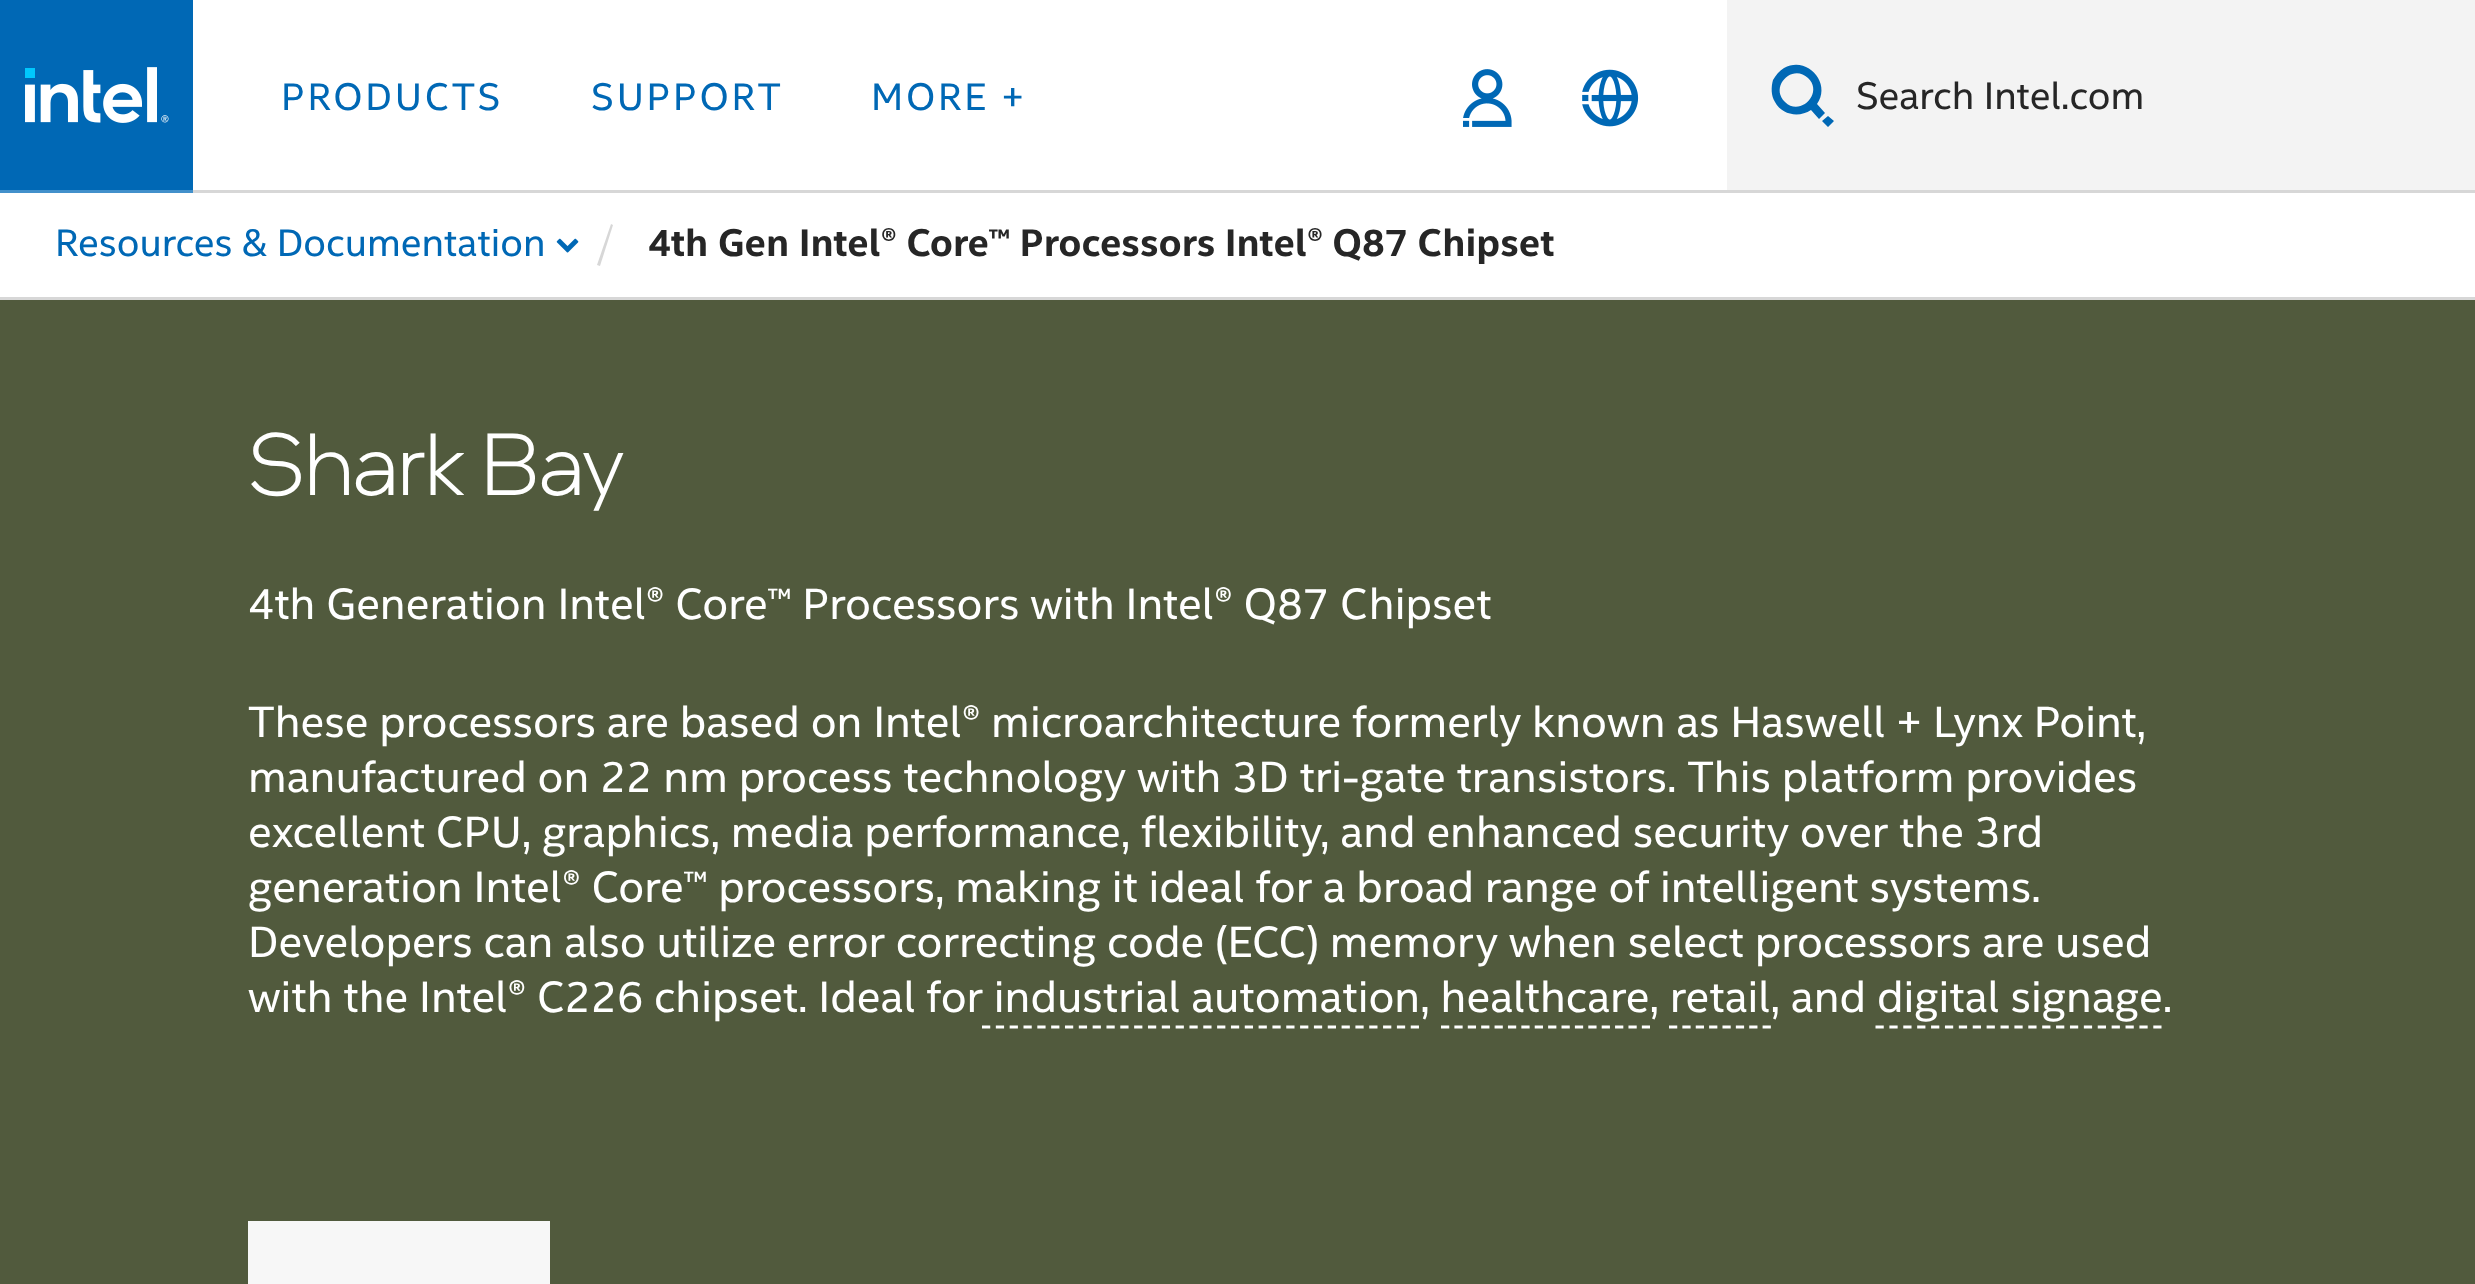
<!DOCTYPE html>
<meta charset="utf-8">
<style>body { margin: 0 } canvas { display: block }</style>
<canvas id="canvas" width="2475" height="1284"></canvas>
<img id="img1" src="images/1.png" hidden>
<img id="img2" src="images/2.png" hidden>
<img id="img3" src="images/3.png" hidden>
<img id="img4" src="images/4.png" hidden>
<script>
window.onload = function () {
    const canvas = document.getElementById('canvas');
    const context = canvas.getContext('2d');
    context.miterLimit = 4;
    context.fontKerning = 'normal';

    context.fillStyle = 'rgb(255, 255, 255)';
    context.fillRect(0, 0, 2475, 1284);
    context.fillStyle = 'rgb(215, 215, 215)';
    context.fillRect(193, 190, 2282, 3);
    context.fillStyle = 'rgb(0, 104, 181)';
    context.fillRect(0, 0, 193, 190);
    context.drawImage(document.getElementById('img1'), 25, 67, 144, 56);
    context.fillStyle = 'rgb(66, 144, 203)';
    context.fillRect(0, 190, 193, 3);
    context.drawImage(document.getElementById('img2'), 1463, 69, 49, 58);
    context.drawImage(document.getElementById('img3'), 1582, 69, 57, 58);
    context.fillStyle = 'rgb(243, 243, 243)';
    context.fillRect(1727, 0, 748, 190);
    context.fillStyle = 'rgb(0, 104, 181)';
    context.beginPath();
    context.moveTo(1834, 121);
    context.lineTo(1828, 127);
    context.lineTo(1822, 121);
    context.lineTo(1828, 116);
    context.closePath();
    context.moveTo(1825, 113);
    context.lineTo(1819, 119);
    context.lineTo(1811, 110);
    context.bezierCurveTo(1799, 118, 1782, 115, 1775, 102);
    context.bezierCurveTo(1771, 96, 1771, 87, 1773, 80);
    context.bezierCurveTo(1776, 75, 1779, 71, 1784, 68);
    context.bezierCurveTo(1807, 55, 1832, 83, 1817, 104);
    context.closePath();
    context.moveTo(1808, 78);
    context.bezierCurveTo(1793, 63, 1769, 86, 1785, 102);
    context.bezierCurveTo(1800, 117, 1824, 93, 1808, 78);
    context.closePath();
    context.fill();
    context.fillStyle = 'rgb(215, 215, 215)';
    context.fillRect(0, 297, 2475, 3);
    context.drawImage(document.getElementById('img4'), 556, 238, 23, 15);
    context.beginPath();
    context.moveTo(611, 224);
    context.lineTo(613, 225);
    context.lineTo(600, 266);
    context.lineTo(597, 265);
    context.closePath();
    context.fill();
    context.fillStyle = 'rgb(81, 90, 61)';
    context.fillRect(0, 300, 2475, 984);
    context.beginPath();
    context.moveTo(982, 1027);
    context.lineTo(1419, 1027);
    context.strokeStyle = 'rgb(255, 255, 255)';
    context.lineWidth = 2.8;
    context.setLineDash([8.25, 5.58]);
    context.stroke();
    context.beginPath();
    context.moveTo(1441, 1027);
    context.lineTo(1650, 1027);
    context.setLineDash([8.25, 5.14]);
    context.stroke();
    context.beginPath();
    context.moveTo(1669, 1027);
    context.lineTo(1771, 1027);
    context.setLineDash([8.25, 5.12]);
    context.stroke();
    context.beginPath();
    context.moveTo(1875.5, 1027);
    context.lineTo(2161.5, 1027);
    context.setLineDash([8.25, 5.64]);
    context.stroke();
    context.fillStyle = 'rgb(247, 247, 247)';
    context.fillRect(248, 1221, 302, 63);
    context.letterSpacing = '2.75px';
    context.font = '38.5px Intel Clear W';
    context.fillStyle = 'rgb(0, 104, 181)';
    context.fillText('PRODUCTS', 281, 110);
    context.fillText('SUPPORT', 591, 110);
    context.fillText('MORE +', 871, 110);
    context.letterSpacing = '0px';
    context.fillStyle = 'rgb(38, 38, 38)';
    context.fillText('Search Intel.com', 1856, 109);
    context.fillStyle = 'rgb(0, 104, 181)';
    context.fillText('Resources & Documentation', 55, 256);
    context.font = 'bold 38.5px Intel Clear W';
    context.fillStyle = 'rgb(38, 38, 38)';
    context.fillText('4th Gen Intel® Core™ Processors Intel® Q87 Chipset', 648, 256);
    context.font = '300 88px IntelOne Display';
    context.fillStyle = 'rgb(255, 255, 255)';
    context.fillText('Shark Bay', 248, 495);
    context.font = '44px Intel Clear W';
    context.fillText('4th Generation Intel® Core™ Processors with Intel® Q87 Chipset', 248, 619);
    context.fillText('These processors are based on Intel® microarchitecture formerly known as Haswell + Lynx Point,', 248, 737);
    context.fillText('manufactured on 22 nm process technology with 3D tri-gate transistors. This platform provides', 248, 792);
    context.fillText('excellent CPU, graphics, media performance, flexibility, and enhanced security over the 3rd', 248, 847);
    context.fillText('generation Intel® Core™ processors, making it ideal for a broad range of intelligent systems.', 248, 902);
    context.fillText('Developers can also utilize error correcting code (ECC) memory when select processors are used', 248, 957);
    context.fillText('with the Intel® C226 chipset. Ideal for industrial automation, healthcare, retail, and digital signage.', 248, 1012);
};
</script>
